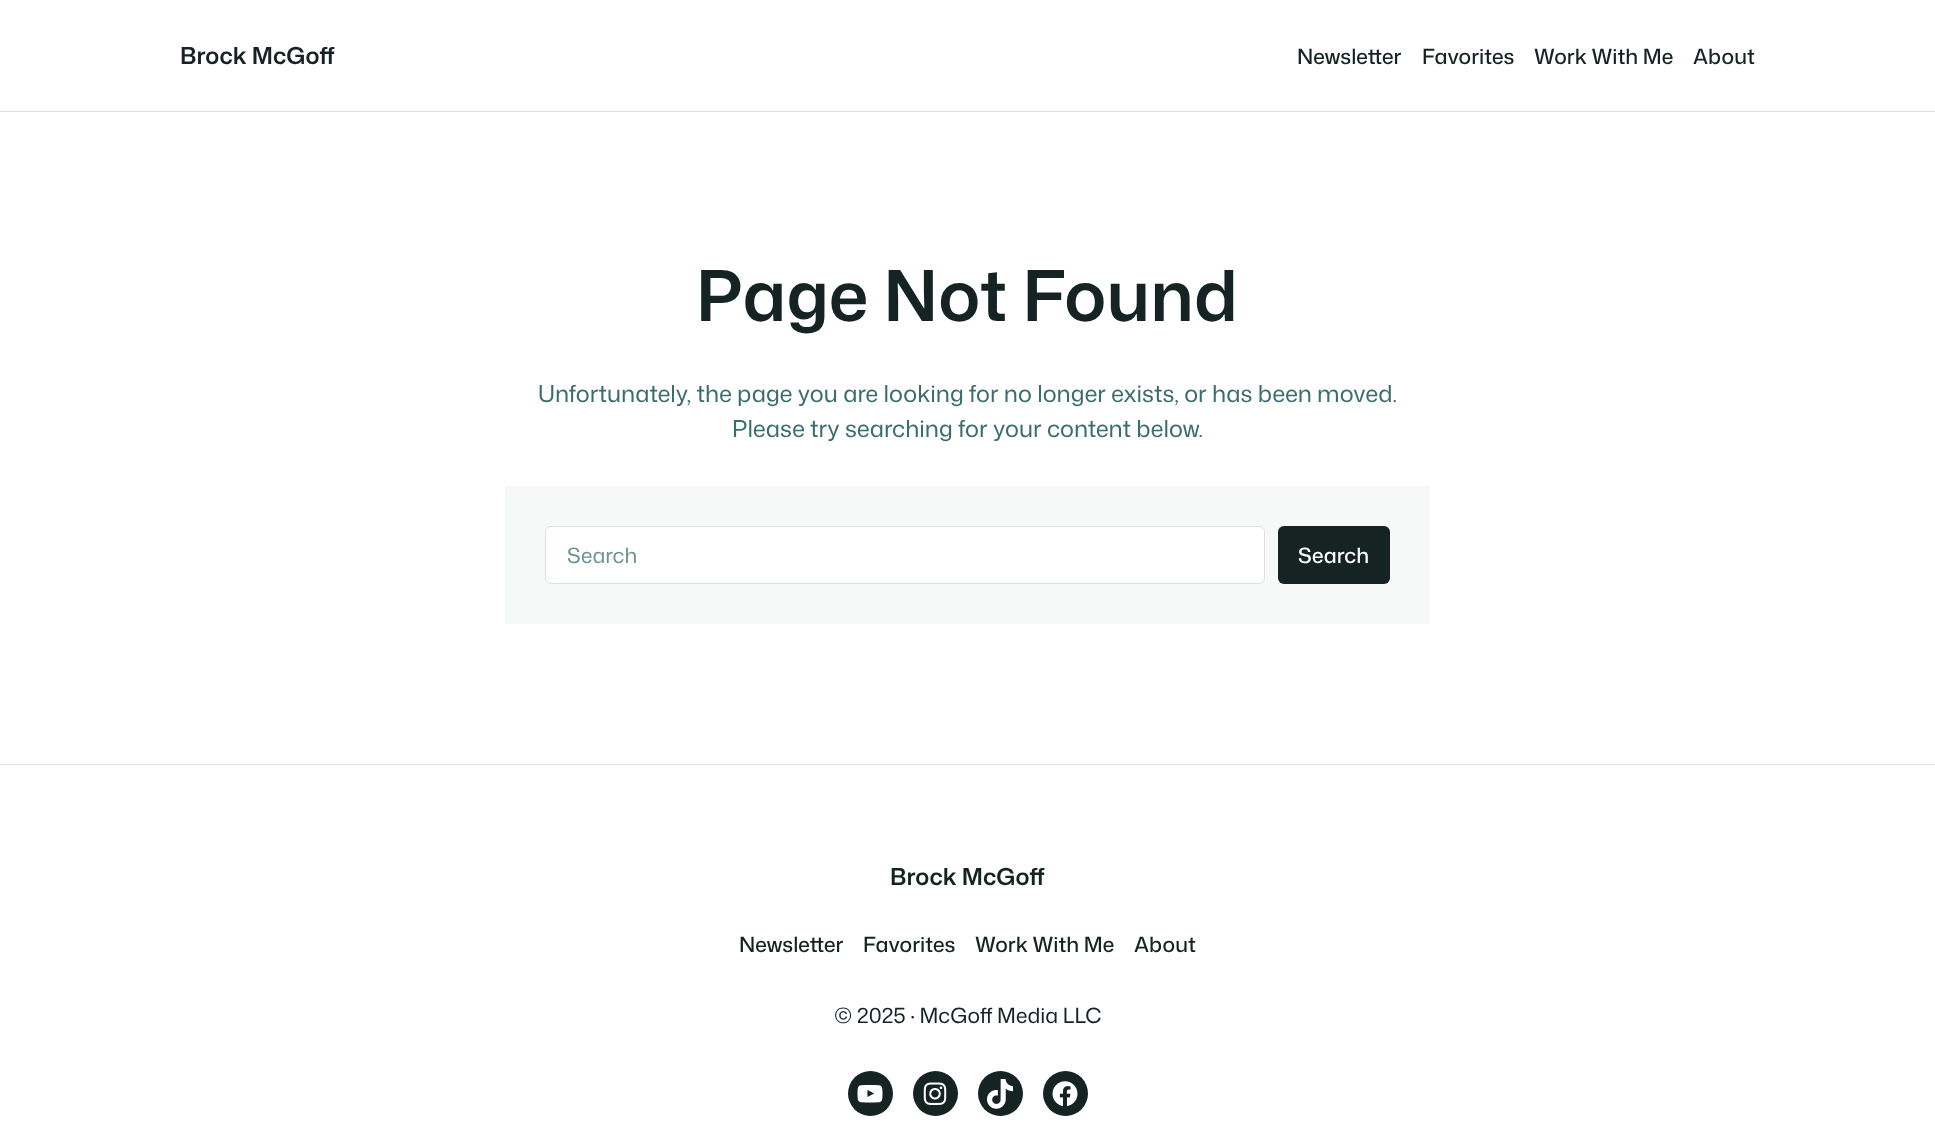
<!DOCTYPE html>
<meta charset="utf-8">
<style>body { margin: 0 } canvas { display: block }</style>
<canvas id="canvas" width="1935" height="1137"></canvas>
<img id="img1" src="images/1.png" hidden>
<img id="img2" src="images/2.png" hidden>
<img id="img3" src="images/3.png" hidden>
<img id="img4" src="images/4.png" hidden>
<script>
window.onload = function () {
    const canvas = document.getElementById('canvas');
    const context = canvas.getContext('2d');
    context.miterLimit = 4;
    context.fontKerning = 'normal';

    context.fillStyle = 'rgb(255, 255, 255)';
    context.fillRect(0, 0, 1935, 1137);
    context.fillStyle = 'rgb(217, 227, 227)';
    context.fillRect(0, 111, 1935, 1);
    context.fillStyle = 'rgb(247, 248, 248)';
    context.fillRect(505, 486, 925, 138);
    context.fillStyle = 'rgb(255, 255, 255)';
    context.beginPath();
    context.roundRect(545.5, 526.5, 719, 57, 5.5);
    context.fill();
    context.strokeStyle = 'rgb(217, 227, 227)';
    context.stroke();
    context.fillStyle = 'rgb(21, 35, 35)';
    context.beginPath();
    context.roundRect(1278, 526, 112, 58, 6);
    context.fill();
    context.fillStyle = 'rgb(217, 227, 227)';
    context.fillRect(0, 764, 1935, 1);
    context.fillStyle = 'rgb(21, 35, 35)';
    context.beginPath();
    context.arc(870.5, 1093.5, 22.5, 0, 2 * Math.PI);
    context.fill();
    context.drawImage(document.getElementById('img1'), 857, 1084, 26, 19);
    context.beginPath();
    context.arc(935.5, 1093.5, 22.5, 0, 2 * Math.PI);
    context.fill();
    context.drawImage(document.getElementById('img2'), 923, 1082, 24, 23);
    context.beginPath();
    context.arc(1000.5, 1093.5, 22.5, 0, 2 * Math.PI);
    context.fill();
    context.drawImage(document.getElementById('img3'), 987, 1079, 27, 30);
    context.beginPath();
    context.arc(1065.5, 1093.5, 22.5, 0, 2 * Math.PI);
    context.fill();
    context.drawImage(document.getElementById('img4'), 1052, 1081, 26, 26);
    context.font = '600 23.3px Mona Sans';
    context.fillText('Brock McGoff', 180, 64);
    context.font = '500 21px Mona Sans';
    context.fillText('Newsletter', 1297, 64);
    context.fillText('Favorites', 1422, 64);
    context.fillText('Work With Me', 1534, 64);
    context.fillText('About', 1693, 64);
    context.font = '600 70px Mona Sans';
    context.fillText('Page Not Found', 696, 321);
    context.font = '23.3px Mona Sans';
    context.fillStyle = 'rgb(59, 109, 109)';
    context.fillText('Unfortunately, the page you are looking for no longer exists, or has been moved.', 538, 402);
    context.fillText('Please try searching for your content below.', 732, 437);
    context.font = '21px Mona Sans';
    context.fillStyle = 'rgb(108, 146, 146)';
    context.fillText('Search', 567, 563);
    context.font = '500 21px Mona Sans';
    context.fillStyle = 'rgb(255, 255, 255)';
    context.fillText('Search', 1298, 563);
    context.font = '600 23.3px Mona Sans';
    context.fillStyle = 'rgb(21, 35, 35)';
    context.fillText('Brock McGoff', 890, 885);
    context.font = '500 21px Mona Sans';
    context.fillText('Newsletter', 739, 952);
    context.fillText('Favorites', 863, 952);
    context.fillText('Work With Me', 975, 952);
    context.fillText('About', 1134, 952);
    context.font = '21px Mona Sans';
    context.fillText('© 2025 · McGoff Media LLC', 834, 1023);
};
</script>
